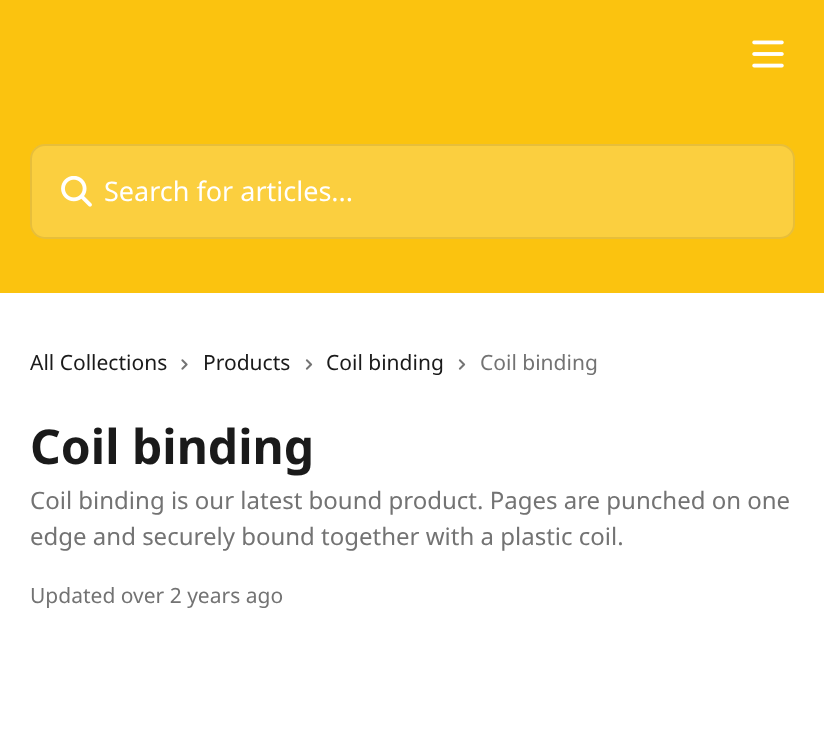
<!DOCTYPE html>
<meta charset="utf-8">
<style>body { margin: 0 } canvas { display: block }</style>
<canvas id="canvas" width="824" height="741"></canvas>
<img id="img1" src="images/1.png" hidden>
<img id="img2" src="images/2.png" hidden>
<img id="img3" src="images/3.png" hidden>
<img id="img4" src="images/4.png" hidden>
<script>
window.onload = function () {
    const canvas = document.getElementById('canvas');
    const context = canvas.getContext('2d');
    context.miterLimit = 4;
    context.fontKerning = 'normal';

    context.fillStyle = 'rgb(255, 255, 255)';
    context.fillRect(0, 0, 824, 741);
    context.fillStyle = 'rgb(251, 195, 15)';
    context.fillRect(0, 0, 824, 293);
    context.drawImage(document.getElementById('img1'), 752, 40, 32, 28);
    context.fillStyle = 'rgba(255, 255, 255, 0.2)';
    context.beginPath();
    context.roundRect(30, 144, 765, 95, 15);
    context.fill();
    context.beginPath();
    context.roundRect(31, 145, 763, 93, 14);
    context.strokeStyle = 'rgba(0, 0, 0, 0.08)';
    context.lineWidth = 2;
    context.stroke();
    context.drawImage(document.getElementById('img2'), 61, 176, 31, 31);
    context.drawImage(document.getElementById('img3'), 181, 359, 7, 11);
    context.drawImage(document.getElementById('img4'), 305, 359, 8, 11);
    context.drawImage(document.getElementById('img4'), 458, 359, 8, 11);
    context.font = '27px Noto Sans';
    context.fillStyle = 'rgb(255, 255, 255)';
    context.fillText('Search for articles...', 104, 201);
    context.font = '21px Noto Sans';
    context.fillStyle = 'rgb(26, 26, 26)';
    context.fillText('All Collections', 30, 370);
    context.fillText('Products', 203, 370);
    context.fillText('Coil binding', 326, 370);
    context.fillStyle = 'rgb(115, 115, 115)';
    context.fillText('Coil binding', 480, 370);
    context.font = 'bold 48px Noto Sans';
    context.fillStyle = 'rgb(26, 26, 26)';
    context.fillText('Coil binding', 30, 464);
    context.font = '24px Noto Sans';
    context.fillStyle = 'rgb(115, 115, 115)';
    context.fillText('Coil binding is our latest bound product. Pages are punched on one', 30, 509);
    context.fillText('edge and securely bound together with a plastic coil.', 30, 545);
    context.font = '21px Noto Sans';
    context.fillText('Updated over 2 years ago', 30, 603);
};
</script>
